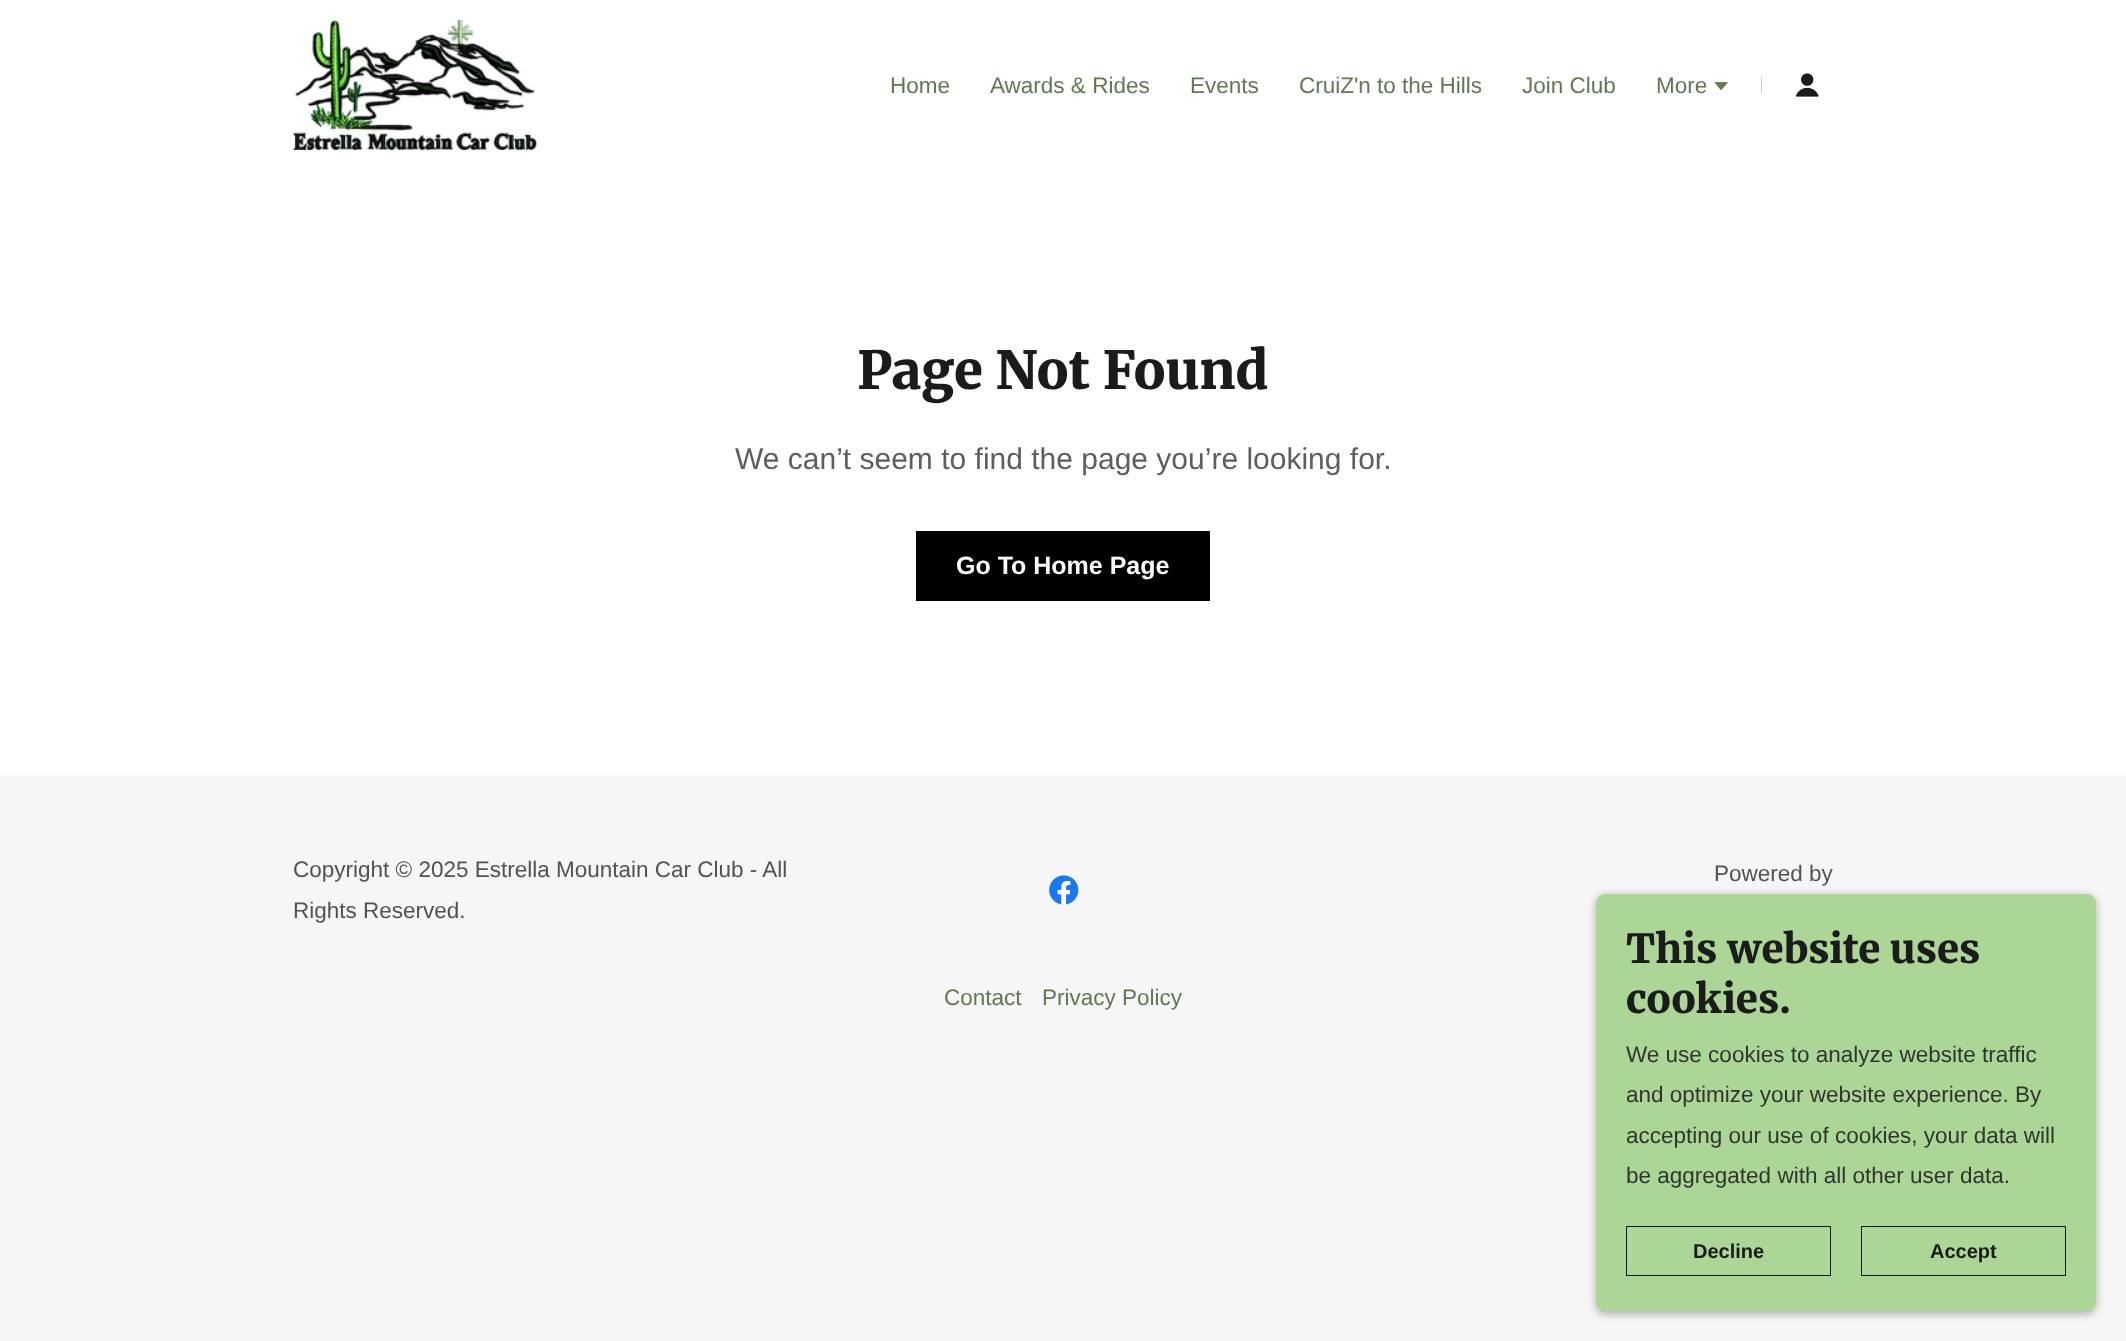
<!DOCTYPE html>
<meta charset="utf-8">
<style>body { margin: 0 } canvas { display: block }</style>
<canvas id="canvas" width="2126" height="1341"></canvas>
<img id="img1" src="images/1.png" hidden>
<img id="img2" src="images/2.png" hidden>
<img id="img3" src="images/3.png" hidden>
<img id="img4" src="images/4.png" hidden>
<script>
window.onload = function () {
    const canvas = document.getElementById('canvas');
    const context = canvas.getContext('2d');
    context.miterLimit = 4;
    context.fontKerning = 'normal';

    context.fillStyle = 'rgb(246, 246, 246)';
    context.fillRect(0, 0, 2126, 1341);
    context.fillStyle = 'rgb(255, 255, 255)';
    context.fillRect(0, 0, 2126, 775);
    context.drawImage(document.getElementById('img1'), 293, 20, 244, 130);
    context.drawImage(document.getElementById('img2'), 1714, 82, 14, 9);
    context.fillStyle = 'rgb(212, 212, 212)';
    context.fillRect(1761, 76, 1, 18);
    context.drawImage(document.getElementById('img3'), 1795, 73, 24, 24);
    context.fillStyle = 'rgb(0, 0, 0)';
    context.fillRect(916, 531, 294, 70);
    context.drawImage(document.getElementById('img4'), 1049, 875, 30, 30);
    context.fillStyle = 'rgba(0, 0, 0, 0.3)';
    context.filter = 'blur(4px)';
    context.beginPath();
    context.roundRect(1596, 896, 500, 418, 9);
    context.fill();
    context.filter = 'none';
    context.fillStyle = 'rgb(172, 214, 150)';
    context.beginPath();
    context.roundRect(1596, 894, 500, 417, 9);
    context.fill();
    context.strokeStyle = 'rgb(22, 22, 22)';
    context.strokeRect(1626.5, 1226.5, 204, 49);
    context.strokeRect(1861.5, 1226.5, 204, 49);
    context.font = '22.5px Liberation Sans';
    context.fillStyle = 'rgb(96, 120, 84)';
    context.fillText('Home', 890, 93);
    context.fillText('Awards & Rides', 990, 93);
    context.fillText('Events', 1190, 93);
    context.fillText('CruiZ\'n to the Hills', 1299, 93);
    context.fillText('Join Club', 1522, 93);
    context.fillText('More', 1656, 93);
    context.font = '300 52.5px Merriweather';
    context.fillStyle = 'rgb(27, 27, 27)';
    context.fillText('Page Not Found', 857, 389);
    context.font = '30px Liberation Sans';
    context.fillStyle = 'rgb(94, 94, 94)';
    context.fillText('We can’t seem to find the page you’re looking for.', 735, 469);
    context.font = 'bold 25px Liberation Sans';
    context.fillStyle = 'rgb(255, 255, 255)';
    context.fillText('Go To Home Page', 956, 574);
    context.font = '22.5px Liberation Sans';
    context.fillStyle = 'rgb(82, 82, 82)';
    context.fillText('Copyright © 2025 Estrella Mountain Car Club - All', 293, 877);
    context.fillText('Rights Reserved.', 293, 918);
    context.fillText('Powered by', 1714, 881);
    context.fillStyle = 'rgb(96, 120, 84)';
    context.fillText('Contact', 944, 1005);
    context.fillText('Privacy Policy', 1042, 1005);
    context.font = '300 40px Merriweather';
    context.fillStyle = 'rgb(27, 27, 27)';
    context.fillText('This website uses', 1626, 963);
    context.fillText('cookies.', 1626, 1013);
    context.font = '22.5px Liberation Sans';
    context.fillStyle = 'rgb(49, 52, 47)';
    context.fillText('We use cookies to analyze website traffic', 1626, 1062);
    context.fillText('and optimize your website experience. By', 1626, 1102);
    context.fillText('accepting our use of cookies, your data will', 1626, 1143);
    context.fillText('be aggregated with all other user data.', 1626, 1183);
    context.font = 'bold 20px Liberation Sans';
    context.fillStyle = 'rgb(27, 27, 27)';
    context.fillText('Decline', 1693, 1258);
    context.fillText('Accept', 1930, 1258);
};
</script>
